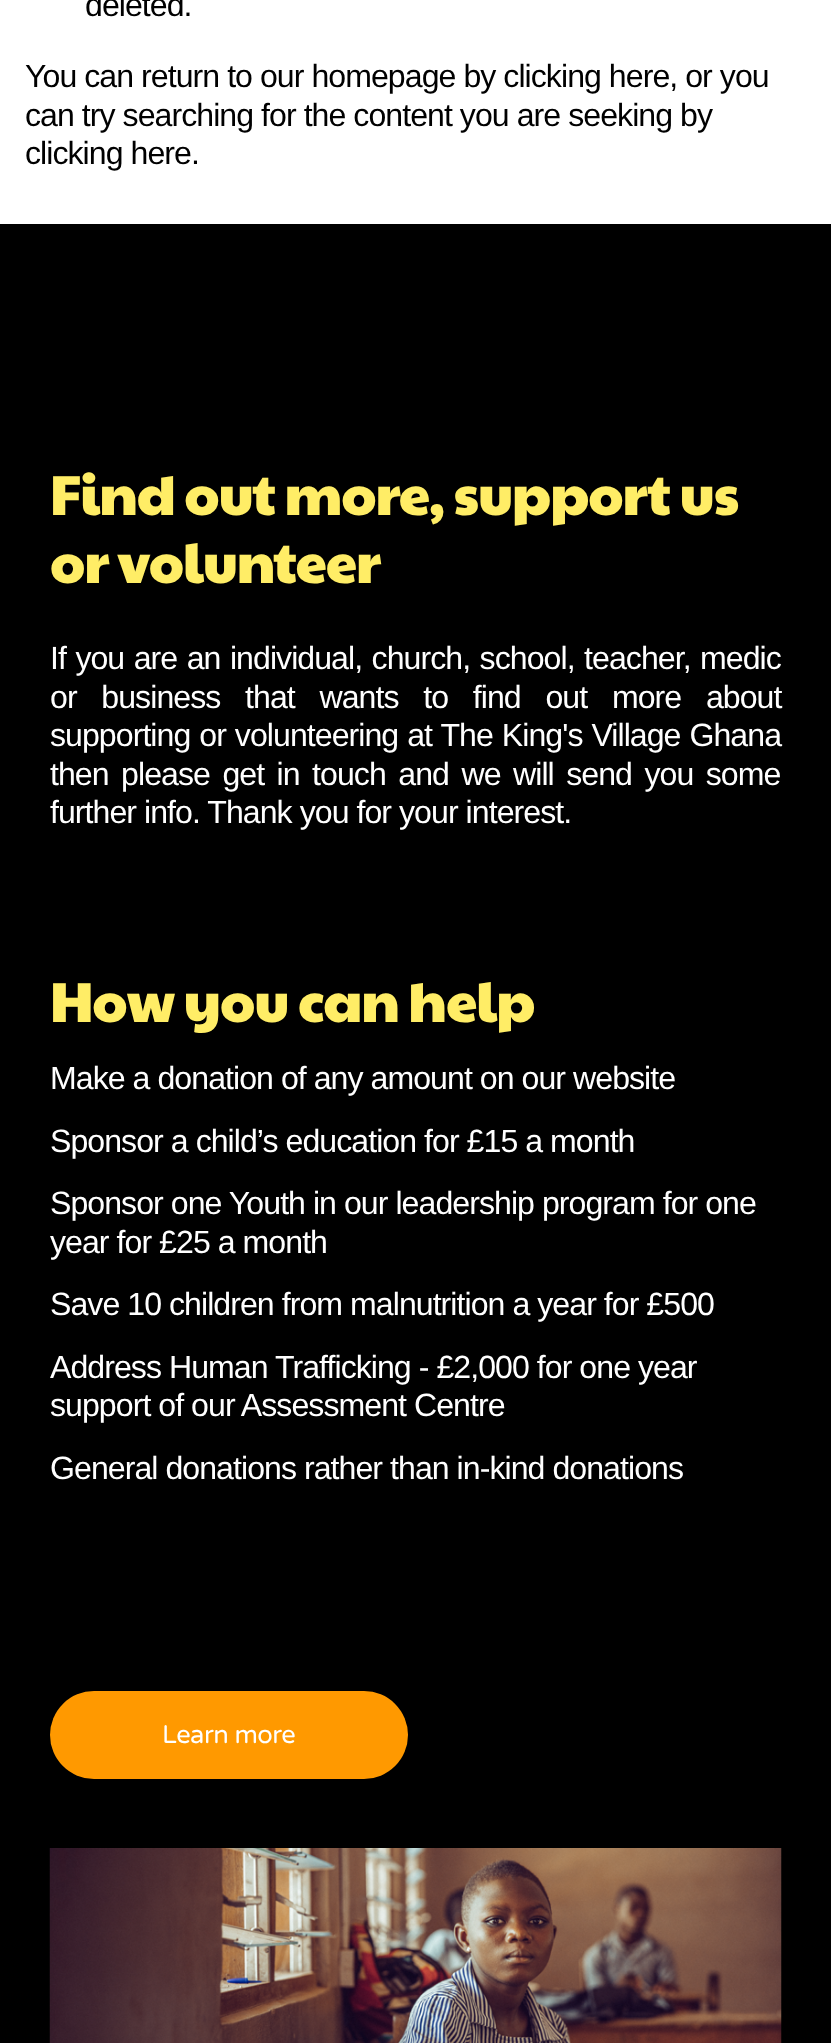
<!DOCTYPE html>
<meta charset="utf-8">
<style>body { margin: 0 } canvas { display: block }</style>
<canvas id="canvas" width="831" height="2043"></canvas>
<img id="img1" src="images/1.png" hidden>
<script>
window.onload = function () {
    const canvas = document.getElementById('canvas');
    const context = canvas.getContext('2d');
    context.miterLimit = 4;
    context.fontKerning = 'normal';

    context.fillStyle = 'rgb(255, 255, 255)';
    context.fillRect(0, 0, 831, 2043);
    context.fillStyle = 'rgb(0, 0, 0)';
    context.fillRect(0, 224, 831, 1819);
    context.fillStyle = 'rgb(255, 153, 0)';
    context.beginPath();
    context.roundRect(50, 1691, 358, 88, 44);
    context.fill();
    context.drawImage(document.getElementById('img1'), 49, 1848, 733, 195);
    context.letterSpacing = '-0.95px';
    context.font = '32.1px Liberation Sans';
    context.fillStyle = 'rgb(0, 0, 0)';
    context.fillText('deleted.', 85, 16);
    context.fillText('You can return to our homepage by clicking here, or you', 25, 87);
    context.fillText('can try searching for the content you are seeking by', 25, 126);
    context.fillText('clicking here.', 25, 164);
    context.letterSpacing = '-1.1px';
    context.font = '56.4px Paytone One';
    context.fillStyle = 'rgb(255, 237, 102)';
    context.fillText('Find out more, support us', 50, 515);
    context.fillText('or volunteer', 50, 583);
    context.letterSpacing = '-0.95px';
    context.wordSpacing = '1.5px';
    context.font = '32.1px Liberation Sans';
    context.fillStyle = 'rgb(255, 255, 255)';
    context.fillText('If you are an individual, church, school, teacher, medic', 50, 669);
    context.wordSpacing = '16.75px';
    context.fillText('or business that wants to find out more about', 50, 708);
    context.wordSpacing = '1px';
    context.fillText('supporting or volunteering at The King\'s Village Ghana', 50, 746);
    context.wordSpacing = '4.5px';
    context.fillText('then please get in touch and we will send you some', 50, 785);
    context.wordSpacing = '0px';
    context.fillText('further info. Thank you for your interest.', 50, 823);
    context.letterSpacing = '-1.1px';
    context.font = '56.4px Paytone One';
    context.fillStyle = 'rgb(255, 237, 102)';
    context.fillText('How you can help', 50, 1022);
    context.letterSpacing = '-0.95px';
    context.font = '32.1px Liberation Sans';
    context.fillStyle = 'rgb(255, 255, 255)';
    context.fillText('Make a donation of any amount on our website', 50, 1089);
    context.fillText('Sponsor a child’s education for £15 a month', 50, 1152);
    context.fillText('Sponsor one Youth in our leadership program for one', 50, 1214);
    context.fillText('year for £25 a month', 50, 1253);
    context.fillText('Save 10 children from malnutrition a year for £500', 50, 1315);
    context.fillText('Address Human Trafficking - £2,000 for one year', 50, 1378);
    context.fillText('support of our Assessment Centre', 50, 1416);
    context.fillText('General donations rather than in-kind donations', 50, 1479);
    context.letterSpacing = '-0.5px';
    context.font = '25.5px Varela Round';
    context.fillText('Learn more', 162, 1743);
};
</script>
